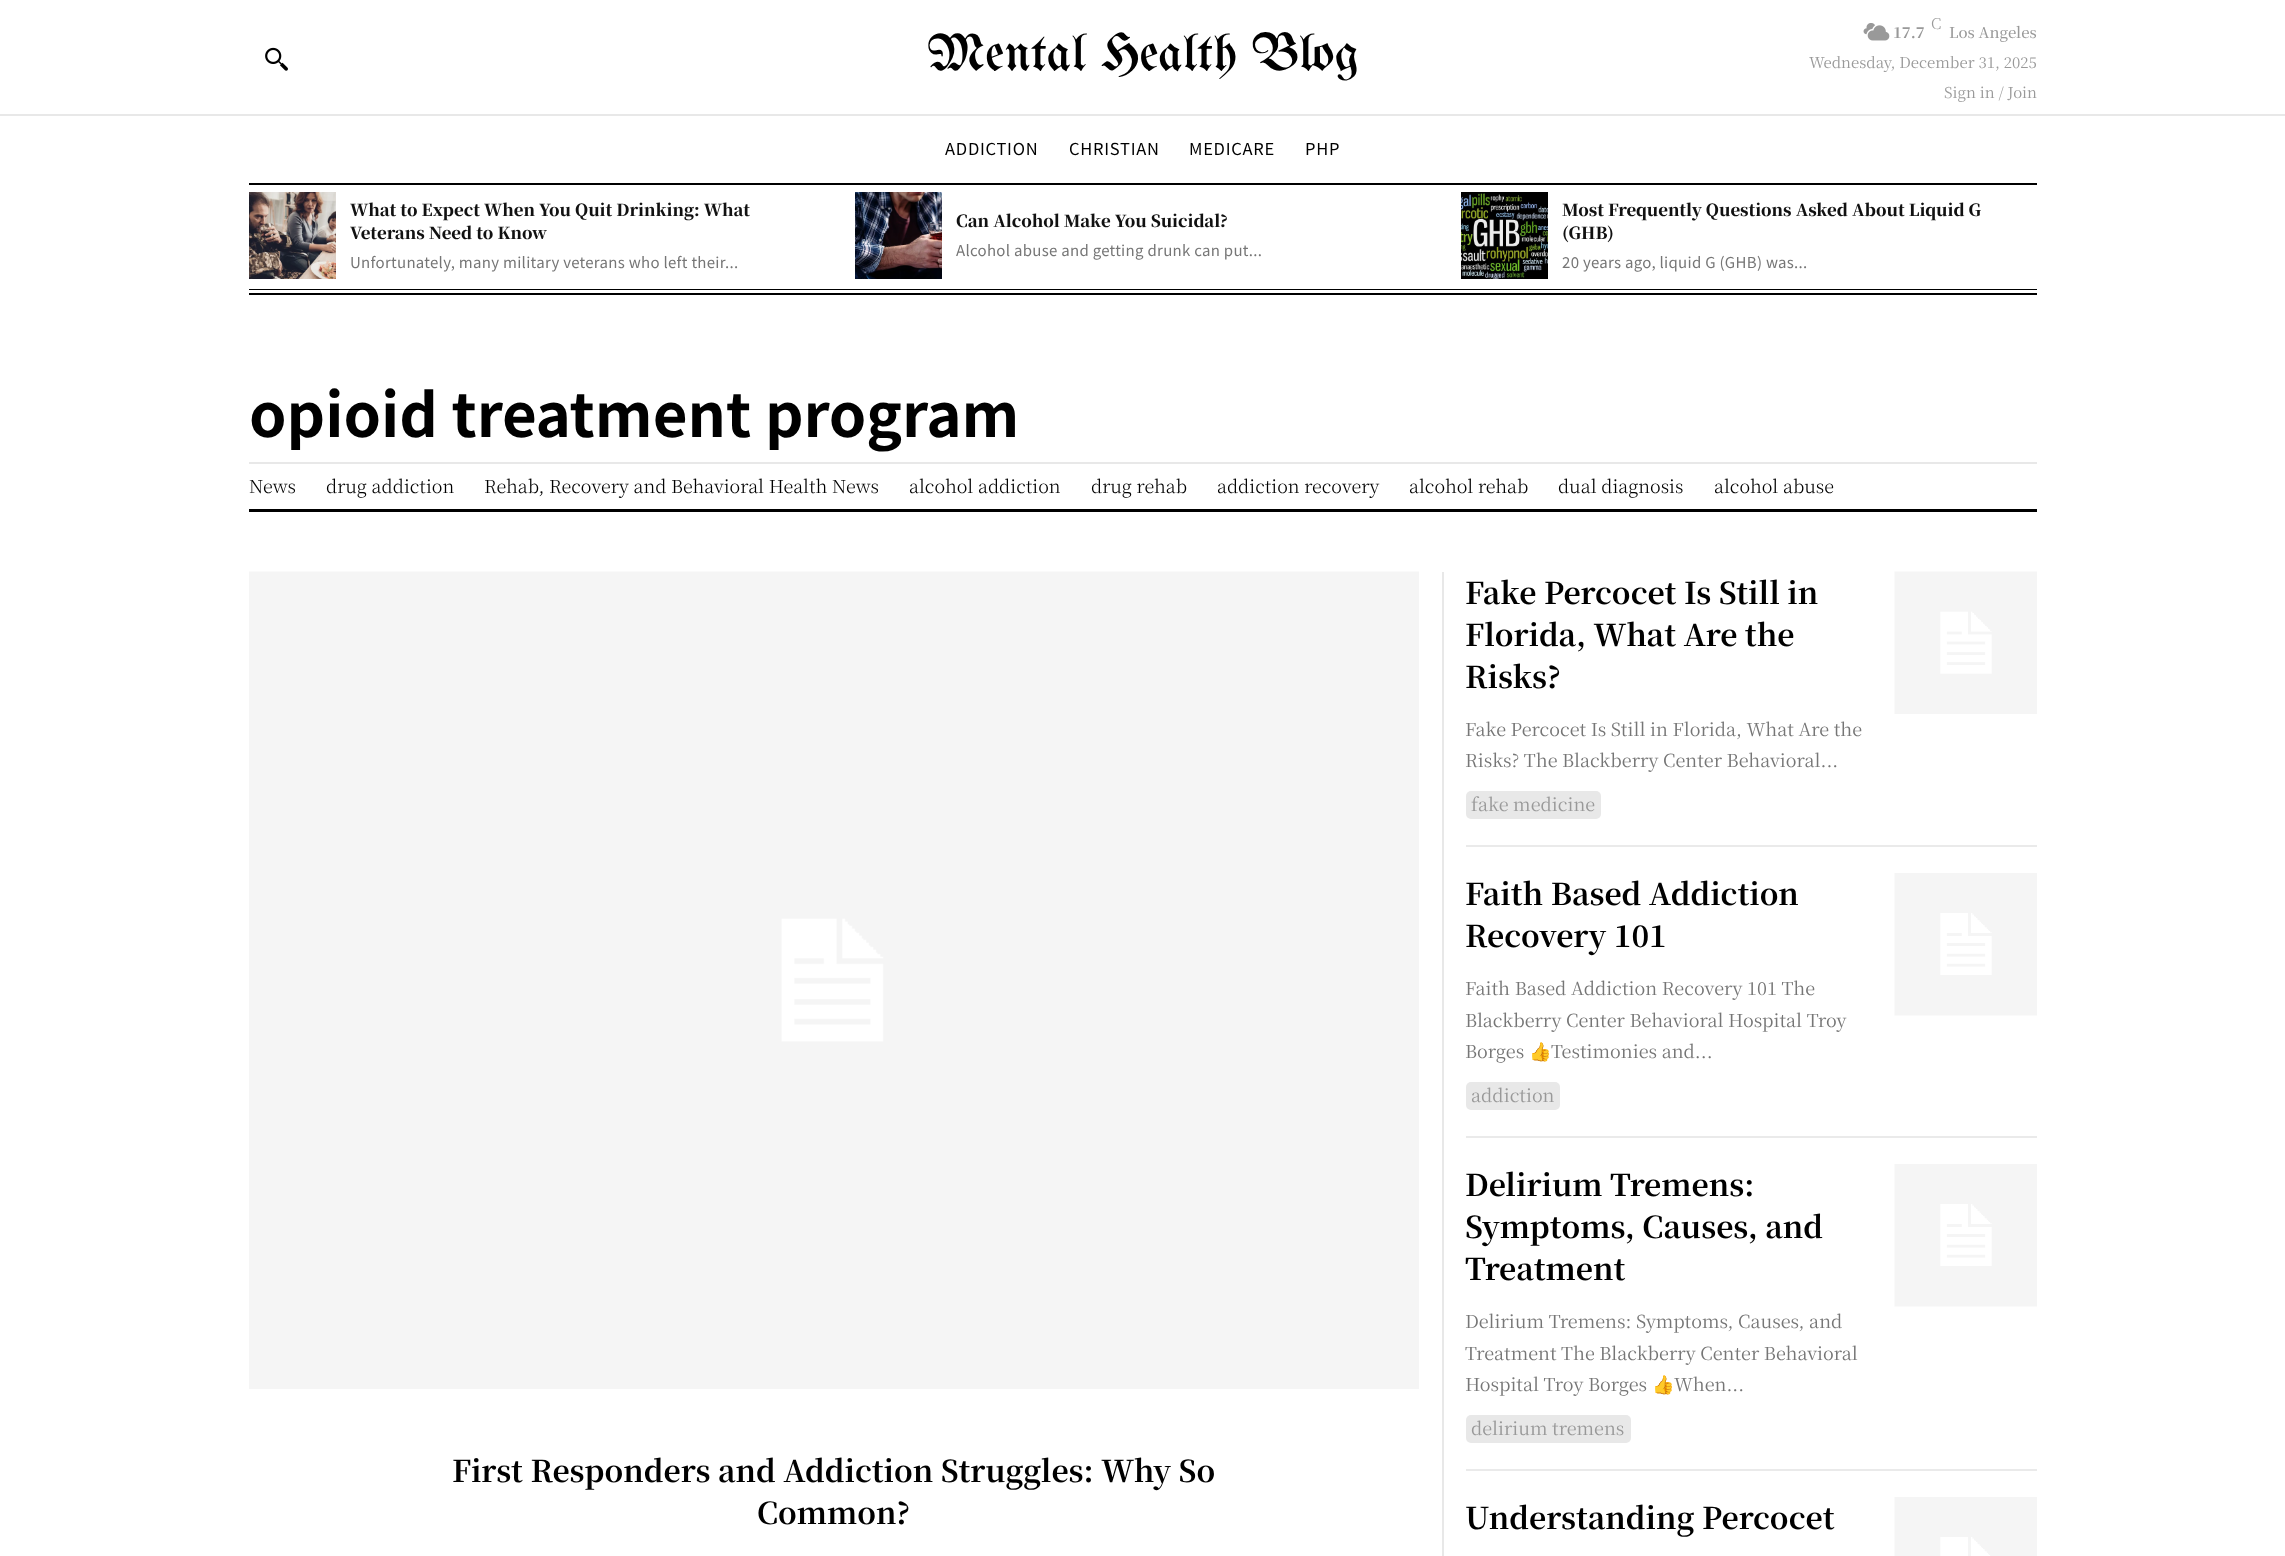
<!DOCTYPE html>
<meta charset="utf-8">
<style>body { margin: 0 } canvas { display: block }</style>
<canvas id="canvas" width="2285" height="1556"></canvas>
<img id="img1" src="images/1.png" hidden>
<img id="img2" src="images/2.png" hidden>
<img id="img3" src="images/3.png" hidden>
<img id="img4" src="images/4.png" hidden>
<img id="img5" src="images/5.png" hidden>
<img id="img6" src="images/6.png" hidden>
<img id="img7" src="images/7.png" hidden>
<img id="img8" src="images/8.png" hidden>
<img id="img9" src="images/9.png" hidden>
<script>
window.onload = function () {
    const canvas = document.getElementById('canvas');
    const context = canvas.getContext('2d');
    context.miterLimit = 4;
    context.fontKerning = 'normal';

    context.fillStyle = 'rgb(255, 255, 255)';
    context.fillRect(0, 0, 2285, 1556);
    context.drawImage(document.getElementById('img1'), 265, 47, 23, 24);
    context.drawImage(document.getElementById('img2'), 1863, 23, 27, 18);
    context.fillStyle = 'rgb(232, 232, 232)';
    context.fillRect(0, 114, 2285, 2);
    context.fillStyle = 'rgb(0, 0, 0)';
    context.fillRect(249, 183, 1788, 2);
    context.fillRect(249, 293, 1788, 2);
    context.drawImage(document.getElementById('img3'), 249, 192, 87, 87);
    context.drawImage(document.getElementById('img4'), 855, 192, 87, 87);
    context.drawImage(document.getElementById('img5'), 1461, 192, 87, 87);
    context.fillRect(249, 289, 1788, 1);
    context.fillRect(249, 509, 1788, 3);
    context.fillStyle = 'rgb(232, 232, 232)';
    context.fillRect(249, 462, 1788, 2);
    context.drawImage(document.getElementById('img6'), 249, 571, 1170, 818);
    context.fillRect(1442, 572, 2, 984);
    context.beginPath();
    context.roundRect(1466, 791, 135, 28, 5);
    context.fill();
    context.drawImage(document.getElementById('img7'), 1894, 571, 143, 143);
    context.fillStyle = 'rgb(234, 234, 234)';
    context.fillRect(1466, 845, 571, 2);
    context.fillStyle = 'rgb(232, 232, 232)';
    context.beginPath();
    context.roundRect(1466, 1082, 94, 28, 5);
    context.fill();
    context.drawImage(document.getElementById('img8'), 1894, 873, 143, 143);
    context.fillStyle = 'rgb(234, 234, 234)';
    context.fillRect(1466, 1136, 571, 2);
    context.fillStyle = 'rgb(232, 232, 232)';
    context.beginPath();
    context.roundRect(1466, 1415, 165, 28, 5);
    context.fill();
    context.drawImage(document.getElementById('img8'), 1894, 1164, 143, 143);
    context.fillStyle = 'rgb(234, 234, 234)';
    context.fillRect(1466, 1469, 571, 2);
    context.drawImage(document.getElementById('img9'), 1894, 1497, 143, 59);
    context.font = '52.5px UnifrakturMaguntia';
    context.fillStyle = 'rgb(0, 0, 0)';
    context.fillText('Mental Health Blog', 927, 70);
    context.font = '300 15px Noto Serif JP';
    context.fillStyle = 'rgb(153, 153, 153)';
    context.fillText('C', 1931, 29);
    context.font = 'bold 15px Noto Serif JP';
    context.fillText('17.7', 1893, 38);
    context.font = '500 15px Noto Serif JP';
    context.fillText('Los Angeles', 1949, 38);
    context.font = '15px Noto Serif JP';
    context.fillText('Wednesday, December 31, 2025', 1809, 68);
    context.fillText('Sign in / Join', 1944, 98);
    context.letterSpacing = '0.75px';
    context.font = '16.5px Noto Sans JP';
    context.fillStyle = 'rgb(0, 0, 0)';
    context.fillText('ADDICTION', 945, 155);
    context.fillText('CHRISTIAN', 1069, 155);
    context.fillText('MEDICARE', 1189, 155);
    context.fillText('PHP', 1305, 155);
    context.letterSpacing = '0px';
    context.font = '900 16.5px Noto Serif JP';
    context.fillStyle = 'rgb(17, 17, 17)';
    context.fillText('What to Expect When You Quit Drinking: What', 350, 216);
    context.fillText('Veterans Need to Know', 350, 239);
    context.letterSpacing = '0.3px';
    context.font = '15px Noto Sans JP';
    context.fillStyle = 'rgb(118, 118, 118)';
    context.fillText('Unfortunately, many military veterans who left their...', 350, 268);
    context.letterSpacing = '0px';
    context.font = '900 16.5px Noto Serif JP';
    context.fillStyle = 'rgb(17, 17, 17)';
    context.fillText('Can Alcohol Make You Suicidal?', 956, 227);
    context.letterSpacing = '0.3px';
    context.font = '15px Noto Sans JP';
    context.fillStyle = 'rgb(118, 118, 118)';
    context.fillText('Alcohol abuse and getting drunk can put...', 956, 256);
    context.letterSpacing = '0px';
    context.font = '900 16.5px Noto Serif JP';
    context.fillStyle = 'rgb(17, 17, 17)';
    context.fillText('Most Frequently Questions Asked About Liquid G', 1562, 216);
    context.fillText('(GHB)', 1562, 239);
    context.letterSpacing = '0.3px';
    context.font = '15px Noto Sans JP';
    context.fillStyle = 'rgb(118, 118, 118)';
    context.fillText('20 years ago, liquid G (GHB) was...', 1562, 268);
    context.letterSpacing = '0px';
    context.font = 'bold 60px Noto Sans JP';
    context.fillStyle = 'rgb(0, 0, 0)';
    context.fillText('opioid treatment program', 249, 437);
    context.font = '300 18px Noto Serif JP';
    context.fillText('News', 249, 493);
    context.fillText('drug addiction', 326, 493);
    context.fillText('Rehab, Recovery and Behavioral Health News', 484, 493);
    context.fillText('alcohol addiction', 909, 493);
    context.fillText('drug rehab', 1091, 493);
    context.fillText('addiction recovery', 1217, 493);
    context.fillText('alcohol rehab', 1409, 493);
    context.fillText('dual diagnosis', 1558, 493);
    context.fillText('alcohol abuse', 1714, 493);
    context.font = 'bold 30px Noto Serif JP';
    context.fillText('First Responders and Addiction Struggles: Why So', 452, 1482);
    context.fillText('Common?', 757, 1524);
    context.fillText('Fake Percocet Is Still in', 1465, 604);
    context.fillText('Florida, What Are the', 1465, 646);
    context.fillText('Risks?', 1465, 688);
    context.font = '18px Noto Serif JP';
    context.fillStyle = 'rgb(118, 118, 118)';
    context.fillText('Fake Percocet Is Still in Florida, What Are the', 1465, 736);
    context.fillText('Risks? The Blackberry Center Behavioral...', 1465, 767);
    context.fillStyle = 'rgb(153, 153, 153)';
    context.fillText('fake medicine', 1471, 811);
    context.font = 'bold 30px Noto Serif JP';
    context.fillStyle = 'rgb(0, 0, 0)';
    context.fillText('Faith Based Addiction', 1465, 905);
    context.fillText('Recovery 101', 1465, 947);
    context.font = '18px Noto Serif JP';
    context.fillStyle = 'rgb(118, 118, 118)';
    context.fillText('Faith Based Addiction Recovery 101 The', 1465, 995);
    context.fillText('Blackberry Center Behavioral Hospital Troy', 1465, 1027);
    context.fillText('Borges', 1465, 1058);
    context.font = '18px Noto Color Emoji';
    context.fillText('👍', 1529, 1058);
    context.font = '18px Noto Serif JP';
    context.fillText('Testimonies and...', 1551, 1058);
    context.fillStyle = 'rgb(153, 153, 153)';
    context.fillText('addiction', 1471, 1102);
    context.font = 'bold 30px Noto Serif JP';
    context.fillStyle = 'rgb(0, 0, 0)';
    context.fillText('Delirium Tremens:', 1465, 1196);
    context.fillText('Symptoms, Causes, and', 1465, 1238);
    context.fillText('Treatment', 1465, 1280);
    context.font = '18px Noto Serif JP';
    context.fillStyle = 'rgb(118, 118, 118)';
    context.fillText('Delirium Tremens: Symptoms, Causes, and', 1465, 1328);
    context.fillText('Treatment The Blackberry Center Behavioral', 1465, 1360);
    context.fillText('Hospital Troy Borges', 1465, 1391);
    context.font = '18px Noto Color Emoji';
    context.fillText('👍', 1652, 1391);
    context.font = '18px Noto Serif JP';
    context.fillText('When...', 1674, 1391);
    context.fillStyle = 'rgb(153, 153, 153)';
    context.fillText('delirium tremens', 1471, 1435);
    context.font = 'bold 30px Noto Serif JP';
    context.fillStyle = 'rgb(0, 0, 0)';
    context.fillText('Understanding Percocet', 1465, 1529);
};
</script>
